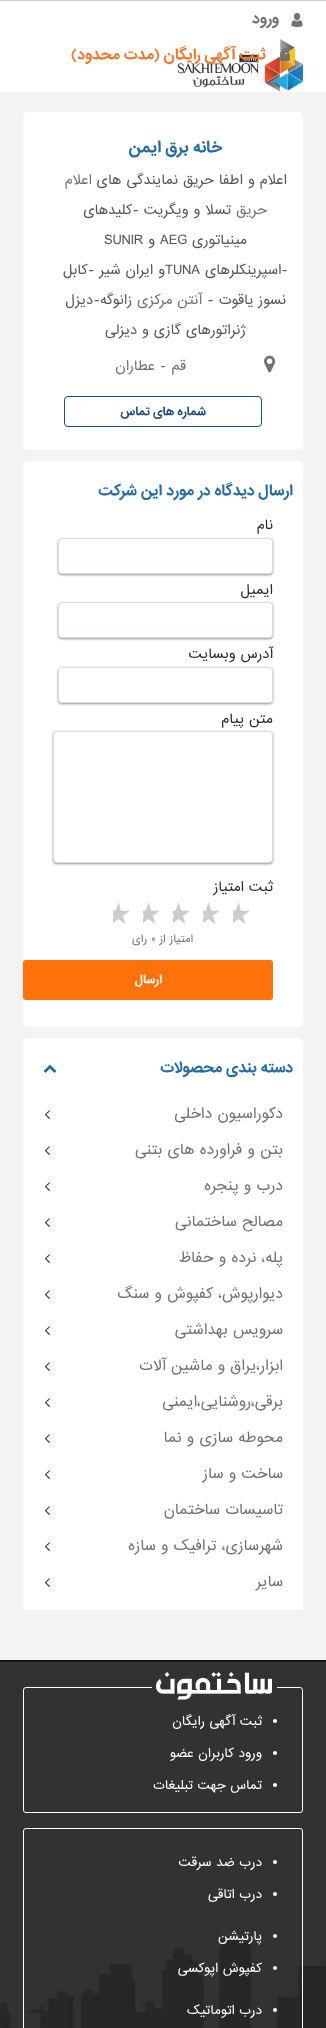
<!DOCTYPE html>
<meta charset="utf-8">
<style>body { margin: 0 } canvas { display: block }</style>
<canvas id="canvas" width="326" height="2028"></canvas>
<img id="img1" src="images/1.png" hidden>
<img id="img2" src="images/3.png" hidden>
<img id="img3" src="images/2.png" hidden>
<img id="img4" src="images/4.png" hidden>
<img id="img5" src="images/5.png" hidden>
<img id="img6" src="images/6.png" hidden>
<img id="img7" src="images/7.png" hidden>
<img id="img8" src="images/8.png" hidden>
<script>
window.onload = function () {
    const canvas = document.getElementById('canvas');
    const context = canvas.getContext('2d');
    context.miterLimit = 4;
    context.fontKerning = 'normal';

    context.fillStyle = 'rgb(255, 255, 255)';
    context.fillRect(0, 0, 326, 2028);
    context.fillStyle = 'rgb(205, 205, 205)';
    context.fillRect(0, 0, 326, 1);
    context.drawImage(document.getElementById('img1'), 291, 13, 12, 14);
    context.drawImage(document.getElementById('img2'), 177, 39, 126, 53);
    context.drawImage(document.getElementById('img3'), 280, 48, 10, 13);
    context.fillStyle = 'rgb(243, 243, 243)';
    context.fillRect(0, 92, 326, 1568);
    context.fillStyle = 'rgb(255, 255, 255)';
    context.beginPath();
    context.roundRect(23, 112, 280, 338, 5);
    context.fill();
    context.drawImage(document.getElementById('img4'), 264, 355, 12, 18);
    context.beginPath();
    context.roundRect(64.5, 396.5, 197, 30, 3.5);
    context.strokeStyle = 'rgb(25, 77, 124)';
    context.stroke();
    context.beginPath();
    context.roundRect(23, 461, 280, 566, 5);
    context.fill();
    context.save();
    context.beginPath();
    context.moveTo(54, 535);
    context.lineTo(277, 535);
    context.lineTo(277, 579);
    context.lineTo(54, 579);
    context.closePath();
    context.moveTo(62, 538);
    context.lineTo(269, 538);
    context.bezierCurveTo(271, 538, 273, 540, 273, 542);
    context.lineTo(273, 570);
    context.bezierCurveTo(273, 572, 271, 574, 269, 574);
    context.lineTo(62, 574);
    context.bezierCurveTo(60, 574, 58, 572, 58, 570);
    context.lineTo(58, 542);
    context.bezierCurveTo(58, 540, 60, 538, 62, 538);
    context.closePath();
    context.clip('evenodd');
    context.fillStyle = 'rgb(142, 146, 154)';
    context.filter = 'blur(1px)';
    context.beginPath();
    context.roundRect(58, 539, 215, 36, 4);
    context.fill();
    context.filter = 'none';
    context.restore();
    context.beginPath();
    context.roundRect(58.5, 538.5, 214, 35, 3.5);
    context.fill();
    context.strokeStyle = 'rgb(216, 220, 226)';
    context.stroke();
    context.save();
    context.beginPath();
    context.moveTo(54, 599);
    context.lineTo(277, 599);
    context.lineTo(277, 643);
    context.lineTo(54, 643);
    context.closePath();
    context.moveTo(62, 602);
    context.lineTo(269, 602);
    context.bezierCurveTo(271, 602, 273, 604, 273, 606);
    context.lineTo(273, 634);
    context.bezierCurveTo(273, 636, 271, 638, 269, 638);
    context.lineTo(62, 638);
    context.bezierCurveTo(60, 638, 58, 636, 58, 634);
    context.lineTo(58, 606);
    context.bezierCurveTo(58, 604, 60, 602, 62, 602);
    context.closePath();
    context.clip('evenodd');
    context.fillStyle = 'rgb(142, 146, 154)';
    context.filter = 'blur(1px)';
    context.beginPath();
    context.roundRect(58, 603, 215, 36, 4);
    context.fill();
    context.filter = 'none';
    context.restore();
    context.beginPath();
    context.roundRect(58.5, 602.5, 214, 35, 3.5);
    context.fill();
    context.stroke();
    context.save();
    context.beginPath();
    context.moveTo(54, 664);
    context.lineTo(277, 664);
    context.lineTo(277, 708);
    context.lineTo(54, 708);
    context.closePath();
    context.moveTo(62, 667);
    context.lineTo(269, 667);
    context.bezierCurveTo(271, 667, 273, 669, 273, 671);
    context.lineTo(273, 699);
    context.bezierCurveTo(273, 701, 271, 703, 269, 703);
    context.lineTo(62, 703);
    context.bezierCurveTo(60, 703, 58, 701, 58, 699);
    context.lineTo(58, 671);
    context.bezierCurveTo(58, 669, 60, 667, 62, 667);
    context.closePath();
    context.clip('evenodd');
    context.fillStyle = 'rgb(142, 146, 154)';
    context.filter = 'blur(1px)';
    context.beginPath();
    context.roundRect(58, 668, 215, 36, 4);
    context.fill();
    context.filter = 'none';
    context.restore();
    context.beginPath();
    context.roundRect(58.5, 667.5, 214, 35, 3.5);
    context.fill();
    context.stroke();
    context.fillStyle = 'rgb(142, 146, 154)';
    context.filter = 'blur(1px)';
    context.beginPath();
    context.roundRect(53, 732, 220, 132, 4);
    context.fill();
    context.filter = 'none';
    context.fillStyle = 'rgb(255, 255, 255)';
    context.beginPath();
    context.roundRect(53.5, 731.5, 219, 131, 3.5);
    context.fill();
    context.stroke();
    context.fillStyle = 'rgb(255, 114, 11)';
    context.beginPath();
    context.roundRect(23, 960, 250, 40, 3);
    context.fill();
    context.fillStyle = 'rgb(255, 255, 255)';
    context.beginPath();
    context.roundRect(23, 1038, 280, 572, 5);
    context.fill();
    context.drawImage(document.getElementById('img5'), 43, 1064, 14, 9);
    context.fillRect(23, 1606, 280, 4);
    context.drawImage(document.getElementById('img6'), 44, 1110, 6, 9);
    context.drawImage(document.getElementById('img6'), 44, 1146, 6, 9);
    context.drawImage(document.getElementById('img6'), 44, 1182, 6, 9);
    context.drawImage(document.getElementById('img6'), 44, 1218, 6, 9);
    context.drawImage(document.getElementById('img6'), 44, 1254, 6, 9);
    context.drawImage(document.getElementById('img6'), 44, 1290, 6, 9);
    context.drawImage(document.getElementById('img6'), 44, 1326, 6, 9);
    context.drawImage(document.getElementById('img6'), 44, 1362, 6, 9);
    context.drawImage(document.getElementById('img6'), 44, 1398, 6, 9);
    context.drawImage(document.getElementById('img6'), 44, 1434, 6, 9);
    context.drawImage(document.getElementById('img6'), 44, 1470, 6, 9);
    context.drawImage(document.getElementById('img6'), 44, 1506, 6, 9);
    context.drawImage(document.getElementById('img6'), 44, 1542, 6, 9);
    context.drawImage(document.getElementById('img6'), 44, 1578, 6, 9);
    context.fillStyle = 'rgb(50, 50, 50)';
    context.fillRect(0, 1662, 326, 276);
    context.drawImage(document.getElementById('img7'), 0, 1938, 326, 90);
    context.fillStyle = 'rgb(20, 20, 20)';
    context.fillRect(0, 1660, 326, 2);
    context.beginPath();
    context.roundRect(23.5, 1687.5, 279, 125, 2.5);
    context.strokeStyle = 'rgb(255, 255, 255)';
    context.stroke();
    context.drawImage(document.getElementById('img8'), 152, 1672, 125, 32);
    context.fillStyle = 'rgb(255, 255, 255)';
    context.beginPath();
    context.arc(275, 1721, 2, 0, 2 * Math.PI);
    context.fill();
    context.beginPath();
    context.arc(275, 1753, 2, 0, 2 * Math.PI);
    context.fill();
    context.beginPath();
    context.arc(275, 1785, 2, 0, 2 * Math.PI);
    context.fill();
    context.beginPath();
    context.roundRect(23.5, 1828.5, 279, 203, 2.5);
    context.stroke();
    context.beginPath();
    context.arc(275, 1862, 2, 0, 2 * Math.PI);
    context.fill();
    context.beginPath();
    context.arc(275, 1894, 2, 0, 2 * Math.PI);
    context.fill();
    context.beginPath();
    context.arc(275, 1936, 2, 0, 2 * Math.PI);
    context.fill();
    context.beginPath();
    context.arc(275, 1968, 2, 0, 2 * Math.PI);
    context.fill();
    context.beginPath();
    context.arc(275, 2010, 2, 0, 2 * Math.PI);
    context.fill();
    context.direction = 'rtl';
    context.font = 'bold 14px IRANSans';
    context.fillStyle = 'rgb(114, 114, 114)';
    context.fillText('ورود', 279, 23);
    context.fillStyle = 'rgb(238, 120, 46)';
    context.fillText('ثبت آگهی رایگان (مدت محدود)', 266, 59);
    context.font = 'bold 15px IRANSans';
    context.fillStyle = 'rgb(37, 110, 163)';
    context.fillText('خانه برق ایمن', 222, 152);
    context.font = '13px IRANSans';
    context.fillStyle = 'rgb(85, 85, 85)';
    context.fillText('اعلام و اطفا حریق نمایندگی های', 287, 184);
    context.fillStyle = 'rgb(114, 114, 114)';
    context.fillText('اعلام', 92, 184);
    context.fillText('حریق', 267, 214);
    context.fillStyle = 'rgb(85, 85, 85)';
    context.fillText('تسلا و ویگریت -کلیدهای', 231, 214);
    context.fillText('مینیاتوری', 247, 244);
    context.direction = 'ltr';
    context.fillText('AEG', 160, 244);
    context.direction = 'rtl';
    context.fillText('و', 155, 244);
    context.direction = 'ltr';
    context.fillText('SUNIR', 104, 244);
    context.direction = 'rtl';
    context.fillText('-اسپرینکلرهای', 288, 274);
    context.direction = 'ltr';
    context.fillText('TUNA', 165, 274);
    context.direction = 'rtl';
    context.fillText('و ایران شیر -کابل', 165, 274);
    context.fillText('نسوز یاقوت -', 286, 304);
    context.fillStyle = 'rgb(114, 114, 114)';
    context.fillText('آنتن مرکزی', 202, 304);
    context.fillStyle = 'rgb(85, 85, 85)';
    context.fillText('زانوگه-دیزل', 132, 304);
    context.fillText('ژنراتورهای گازی و دیزلی', 246, 334);
    context.fillStyle = 'rgb(114, 114, 114)';
    context.fillText('قم - عطاران', 186, 370);
    context.font = 'bold 11px IRANSans';
    context.fillStyle = 'rgb(25, 77, 124)';
    context.fillText('شماره های تماس', 206, 415);
    context.font = 'bold 14px IRANSans';
    context.fillStyle = 'rgb(37, 110, 163)';
    context.fillText('ارسال دیدگاه در مورد این شرکت', 293, 495);
    context.font = '13px IRANSans';
    context.fillStyle = 'rgb(40, 40, 40)';
    context.fillText('نام', 273, 529);
    context.fillText('ایمیل', 273, 594);
    context.fillText('آدرس وبسایت', 273, 658);
    context.fillText('متن پیام', 273, 723);
    context.fillText('ثبت امتیاز', 273, 891);
    context.save();
    context.beginPath();
    context.rect(233, 900, 30, 30);
    context.clip();
    context.direction = 'ltr';
    context.font = '30px DejaVu Sans';
    context.fillStyle = 'rgb(204, 204, 204)';
    context.fillText('★', 225, 924);
    context.restore();
    context.save();
    context.beginPath();
    context.rect(203, 900, 30, 30);
    context.clip();
    context.direction = 'ltr';
    context.font = '30px DejaVu Sans';
    context.fillStyle = 'rgb(204, 204, 204)';
    context.fillText('★', 195, 924);
    context.restore();
    context.save();
    context.beginPath();
    context.rect(173, 900, 30, 30);
    context.clip();
    context.direction = 'ltr';
    context.font = '30px DejaVu Sans';
    context.fillStyle = 'rgb(204, 204, 204)';
    context.fillText('★', 165, 924);
    context.restore();
    context.save();
    context.beginPath();
    context.rect(143, 900, 30, 30);
    context.clip();
    context.direction = 'ltr';
    context.font = '30px DejaVu Sans';
    context.fillStyle = 'rgb(204, 204, 204)';
    context.fillText('★', 135, 924);
    context.restore();
    context.save();
    context.beginPath();
    context.rect(113, 900, 30, 30);
    context.clip();
    context.direction = 'ltr';
    context.font = '30px DejaVu Sans';
    context.fillStyle = 'rgb(204, 204, 204)';
    context.fillText('★', 105, 924);
    context.restore();
    context.font = '10px IRANSans';
    context.fillStyle = 'rgb(114, 114, 114)';
    context.fillText('امتیاز از', 193, 942);
    context.direction = 'ltr';
    context.fillText('۰', 151, 942);
    context.direction = 'rtl';
    context.fillText('رای', 147, 942);
    context.font = 'bold 11px IRANSans';
    context.fillStyle = 'rgb(255, 255, 255)';
    context.fillText('ارسال', 162, 983);
    context.font = 'bold 14px IRANSans';
    context.fillStyle = 'rgb(37, 110, 163)';
    context.fillText('دسته بندی محصولات', 293, 1072);
    context.font = '14px IRANSans';
    context.fillStyle = 'rgb(114, 114, 114)';
    context.fillText('دکوراسیون داخلی', 283, 1118);
    context.fillText('بتن و فراورده های بتنی', 283, 1154);
    context.fillText('درب و پنجره', 283, 1190);
    context.fillText('مصالح ساختمانی', 283, 1226);
    context.fillText('پله، نرده و حفاظ', 283, 1262);
    context.fillText('دیوارپوش، کفپوش و سنگ', 283, 1298);
    context.fillText('سرویس بهداشتی', 283, 1334);
    context.fillText('ابزار،یراق و ماشین آلات', 283, 1370);
    context.fillText('برقی،روشنایی،ایمنی', 283, 1406);
    context.fillText('محوطه سازی و نما', 283, 1442);
    context.fillText('ساخت و ساز', 283, 1478);
    context.fillText('تاسیسات ساختمان', 283, 1514);
    context.fillText('شهرسازی، ترافیک و سازه', 283, 1550);
    context.fillText('سایر', 283, 1586);
    context.font = '12px IRANSans';
    context.fillStyle = 'rgb(255, 255, 255)';
    context.fillText('ثبت آگهی رایگان', 262, 1725);
    context.fillText('ورود کاربران عضو', 262, 1757);
    context.fillText('تماس جهت تبلیغات', 262, 1789);
    context.fillText('درب ضد سرقت', 262, 1866);
    context.fillText('درب اتاقی', 262, 1898);
    context.fillText('پارتیشن', 262, 1940);
    context.fillText('کفپوش اپوکسی', 262, 1972);
    context.fillText('درب اتوماتیک', 262, 2014);
};
</script>
